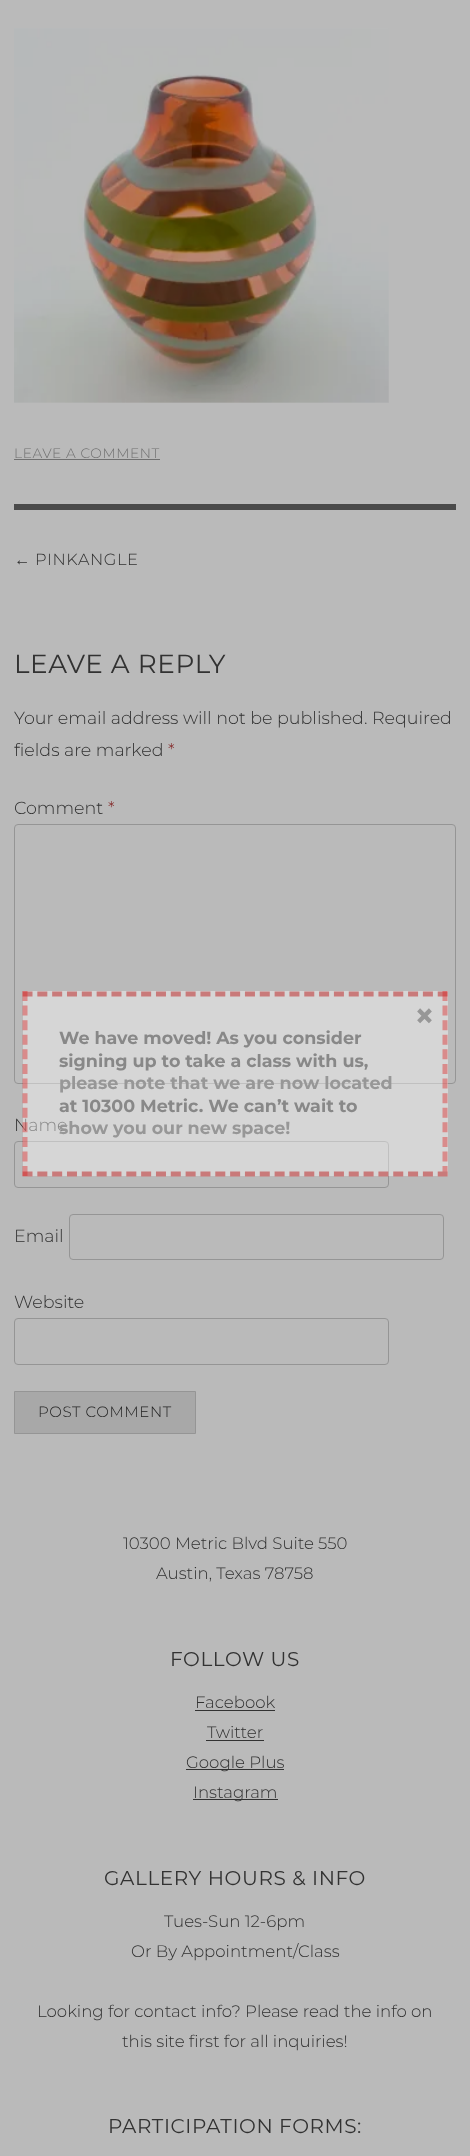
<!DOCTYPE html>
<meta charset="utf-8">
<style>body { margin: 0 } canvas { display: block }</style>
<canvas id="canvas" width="470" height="2156"></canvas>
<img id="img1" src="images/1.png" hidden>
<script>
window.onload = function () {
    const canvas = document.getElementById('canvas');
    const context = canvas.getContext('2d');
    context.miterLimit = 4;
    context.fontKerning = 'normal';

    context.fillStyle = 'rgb(186, 186, 186)';
    context.fillRect(0, 0, 470, 2156);
    context.drawImage(document.getElementById('img1'), 14, 28, 375, 375);
    context.fillStyle = 'rgb(112, 112, 112)';
    context.fillRect(14, 459, 146, 1);
    context.fillStyle = 'rgb(74, 74, 74)';
    context.fillRect(14, 504, 442, 6);
    context.beginPath();
    context.roundRect(14.5, 824.5, 441, 259, 3.5);
    context.strokeStyle = 'rgb(149, 149, 149)';
    context.stroke();
    context.beginPath();
    context.roundRect(14.5, 1141.5, 374, 46, 3.5);
    context.stroke();
    context.beginPath();
    context.roundRect(69.5, 1214.5, 374, 45, 3.5);
    context.stroke();
    context.beginPath();
    context.roundRect(14.5, 1318.5, 374, 46, 3.5);
    context.stroke();
    context.fillStyle = 'rgb(168, 168, 168)';
    context.beginPath();
    context.rect(14.5, 1391.5, 181, 42);
    context.fill();
    context.stroke();
    context.fillStyle = 'rgb(50, 50, 50)';
    context.fillRect(195, 1710, 80, 1);
    context.fillRect(206, 1740, 58, 1);
    context.fillRect(186, 1769, 98, 1);
    context.fillRect(193, 1799, 85, 1);
    context.letterSpacing = '0.6px';
    context.font = '300 13.75px Montserrat';
    context.fillStyle = 'rgb(112, 112, 112)';
    context.fillText('LEAVE A COMMENT', 14, 458);
    context.font = '16.25px Liberation Serif';
    context.fillStyle = 'rgb(50, 50, 50)';
    context.fillText('←', 14, 565);
    context.font = '300 16.25px Montserrat';
    context.fillText('PINKANGLE', 35, 565);
    context.font = '100 26.25px Montserrat';
    context.fillText('LEAVE A REPLY', 14, 673);
    context.letterSpacing = '0px';
    context.font = '300 17.5px Montserrat';
    context.fillText('Your email address will not be published. Required', 14, 724);
    context.fillText('fields are marked', 14, 756);
    context.fillStyle = 'rgb(130, 34, 34)';
    context.fillText('*', 168, 756);
    context.fillStyle = 'rgb(50, 50, 50)';
    context.fillText('Comment', 14, 814);
    context.fillStyle = 'rgb(130, 34, 34)';
    context.fillText('*', 108, 814);
    context.fillStyle = 'rgb(50, 50, 50)';
    context.fillText('Name', 14, 1131);
    context.fillText('Email', 14, 1242);
    context.fillText('Website', 14, 1308);
    context.letterSpacing = '0.6px';
    context.font = '300 15px Montserrat';
    context.fillStyle = 'rgb(34, 34, 34)';
    context.fillText('POST COMMENT', 38, 1417);
    context.letterSpacing = '0px';
    context.font = '300 16.6px Montserrat';
    context.fillStyle = 'rgb(50, 50, 50)';
    context.fillText('10300 Metric Blvd Suite 550', 123, 1549);
    context.fillText('Austin, Texas 78758', 156, 1579);
    context.letterSpacing = '0.6px';
    context.font = '100 20px Montserrat';
    context.fillText('FOLLOW US', 170, 1666);
    context.letterSpacing = '0px';
    context.font = '300 16.6px Montserrat';
    context.fillText('Facebook', 195, 1708);
    context.fillText('Twitter', 207, 1738);
    context.fillText('Google Plus', 186, 1768);
    context.fillText('Instagram', 193, 1798);
    context.letterSpacing = '0.6px';
    context.font = '100 20px Montserrat';
    context.fillText('GALLERY HOURS & INFO', 104, 1885);
    context.letterSpacing = '0px';
    context.font = '300 16.6px Montserrat';
    context.fillText('Tues-Sun 12-6pm', 164, 1927);
    context.fillText('Or By Appointment/Class', 131, 1957);
    context.fillText('Looking for contact info? Please read the info on', 37, 2017);
    context.fillText('this site first for all inquiries!', 122, 2047);
    context.letterSpacing = '0.6px';
    context.font = '100 20px Montserrat';
    context.fillText('PARTICIPATION FORMS:', 108, 2133);
    context.fillStyle = 'rgba(255, 255, 255, 0.41)';
    context.fillRect(23, 991, 425, 185);
    context.beginPath();
    context.moveTo(22.5, 994);
    context.lineTo(447.5, 994);
    context.strokeStyle = 'rgb(201, 122, 122)';
    context.lineWidth = 5;
    context.setLineDash([10, 4.83]);
    context.stroke();
    context.beginPath();
    context.moveTo(445, 991);
    context.lineTo(445, 1176);
    context.strokeStyle = 'rgba(221, 31, 31, 0.41)';
    context.setLineDash([10, 4.59]);
    context.stroke();
    context.beginPath();
    context.moveTo(22.5, 1174);
    context.lineTo(447.5, 1174);
    context.strokeStyle = 'rgb(201, 122, 122)';
    context.setLineDash([10, 4.83]);
    context.stroke();
    context.beginPath();
    context.moveTo(25, 991);
    context.lineTo(25, 1176);
    context.strokeStyle = 'rgba(221, 31, 31, 0.41)';
    context.setLineDash([10, 4.59]);
    context.stroke();
    context.letterSpacing = '0px';
    context.font = 'bold 35px Montserrat';
    context.fillStyle = 'rgb(151, 151, 151)';
    context.fillText('×', 414, 1028);
    context.font = 'bold 17.5px Montserrat';
    context.fillStyle = 'rgb(136, 136, 136)';
    context.fillText('We have moved! As you consider', 59, 1044);
    context.fillText('signing up to take a class with us,', 59, 1067);
    context.fillStyle = 'rgb(151, 151, 151)';
    context.fillText('please note that we are now located', 59, 1089);
    context.fillStyle = 'rgb(136, 136, 136)';
    context.fillText('at 10300 Metric. We can’t wait to', 59, 1112);
    context.fillStyle = 'rgb(151, 151, 151)';
    context.fillText('show you our new space!', 59, 1134);
};
</script>
